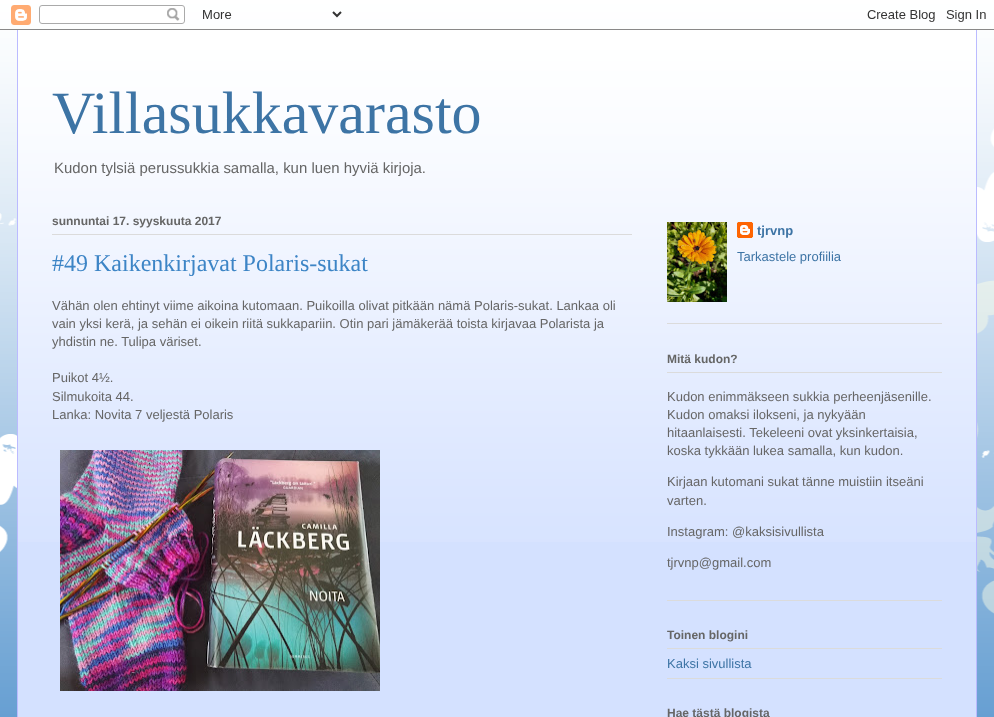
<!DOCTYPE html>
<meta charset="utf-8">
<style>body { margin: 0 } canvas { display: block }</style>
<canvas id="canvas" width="994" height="717"></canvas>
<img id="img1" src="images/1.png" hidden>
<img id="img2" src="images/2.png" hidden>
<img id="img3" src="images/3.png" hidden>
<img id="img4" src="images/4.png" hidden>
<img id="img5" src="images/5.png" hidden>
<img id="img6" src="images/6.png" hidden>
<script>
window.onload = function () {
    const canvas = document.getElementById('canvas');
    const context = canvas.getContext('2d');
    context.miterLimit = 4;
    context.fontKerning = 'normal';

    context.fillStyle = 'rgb(61, 133, 198)';
    context.fillRect(0, 0, 994, 717);
    context.drawImage(document.getElementById('img1'), 0, 0, 994, 717);
    context.drawImage(document.getElementById('img2'), 0, 5, 994, 25);
    context.fillStyle = 'rgb(212, 225, 255)';
    context.fillRect(18, 37, 958, 680);
    context.drawImage(document.getElementById('img3'), 18, 30, 958, 512);
    context.fillStyle = 'rgb(187, 187, 255)';
    context.fillRect(976, 30, 1, 687);
    context.fillRect(17, 30, 1, 687);
    context.fillStyle = 'rgb(219, 219, 219)';
    context.fillRect(52, 234, 580, 1);
    context.drawImage(document.getElementById('img4'), 60, 450, 320, 241);
    context.fillRect(667, 323, 275, 1);
    context.drawImage(document.getElementById('img5'), 667, 222, 60, 80);
    context.drawImage(document.getElementById('img6'), 737, 222, 16, 16);
    context.fillRect(667, 600, 275, 1);
    context.fillRect(667, 372, 275, 1);
    context.fillRect(667, 678, 275, 1);
    context.fillRect(667, 648, 275, 1);
    context.font = '60px Liberation Serif';
    context.fillStyle = 'rgb(61, 116, 165)';
    context.fillText('Villasukkavarasto', 52, 133);
    context.font = '14.95px Liberation Sans';
    context.fillStyle = 'rgb(102, 102, 102)';
    context.fillText('Kudon tylsiä perussukkia samalla, kun luen hyviä kirjoja.', 54, 173);
    context.font = 'bold 12px Liberation Sans';
    context.fillText('sunnuntai 17. syyskuuta 2017', 52, 225);
    context.font = '24px Liberation Serif';
    context.fillStyle = 'rgb(61, 133, 198)';
    context.fillText('#49 Kaikenkirjavat Polaris-sukat', 52, 271);
    context.font = '13px Liberation Sans';
    context.fillStyle = 'rgb(102, 102, 102)';
    context.fillText('Vähän olen ehtinyt viime aikoina kutomaan. Puikoilla olivat pitkään nämä Polaris-sukat. Lankaa oli', 52, 310);
    context.fillText('vain yksi kerä, ja sehän ei oikein riitä sukkapariin. Otin pari jämäkerää toista kirjavaa Polarista ja', 52, 328);
    context.fillText('yhdistin ne. Tulipa väriset.', 52, 346);
    context.fillText('Puikot 4½.', 52, 382);
    context.fillText('Silmukoita 44.', 52, 401);
    context.fillText('Lanka: Novita 7 veljestä Polaris', 52, 419);
    context.font = 'bold 13px Liberation Sans';
    context.fillStyle = 'rgb(61, 116, 165)';
    context.fillText('tjrvnp', 757, 235);
    context.font = '13px Liberation Sans';
    context.fillText('Tarkastele profiilia', 737, 261);
    context.font = 'bold 12px Liberation Sans';
    context.fillStyle = 'rgb(102, 102, 102)';
    context.fillText('Mitä kudon?', 667, 363);
    context.font = '13px Liberation Sans';
    context.fillText('Kudon enimmäkseen sukkia perheenjäsenille.', 667, 401);
    context.fillText('Kudon omaksi ilokseni, ja nykyään', 667, 419);
    context.fillText('hitaanlaisesti. Tekeleeni ovat yksinkertaisia,', 667, 437);
    context.fillText('koska tykkään lukea samalla, kun kudon.', 667, 455);
    context.fillText('Kirjaan kutomani sukat tänne muistiin itseäni', 667, 486);
    context.fillText('varten.', 667, 505);
    context.fillText('Instagram: @kaksisivullista', 667, 536);
    context.fillText('tjrvnp@gmail.com', 667, 567);
    context.font = 'bold 12px Liberation Sans';
    context.fillText('Toinen blogini', 667, 639);
    context.font = '13px Liberation Sans';
    context.fillStyle = 'rgb(61, 116, 165)';
    context.fillText('Kaksi sivullista', 667, 668);
    context.font = 'bold 12px Liberation Sans';
    context.fillStyle = 'rgb(102, 102, 102)';
    context.fillText('Hae tästä blogista', 667, 717);
};
</script>
